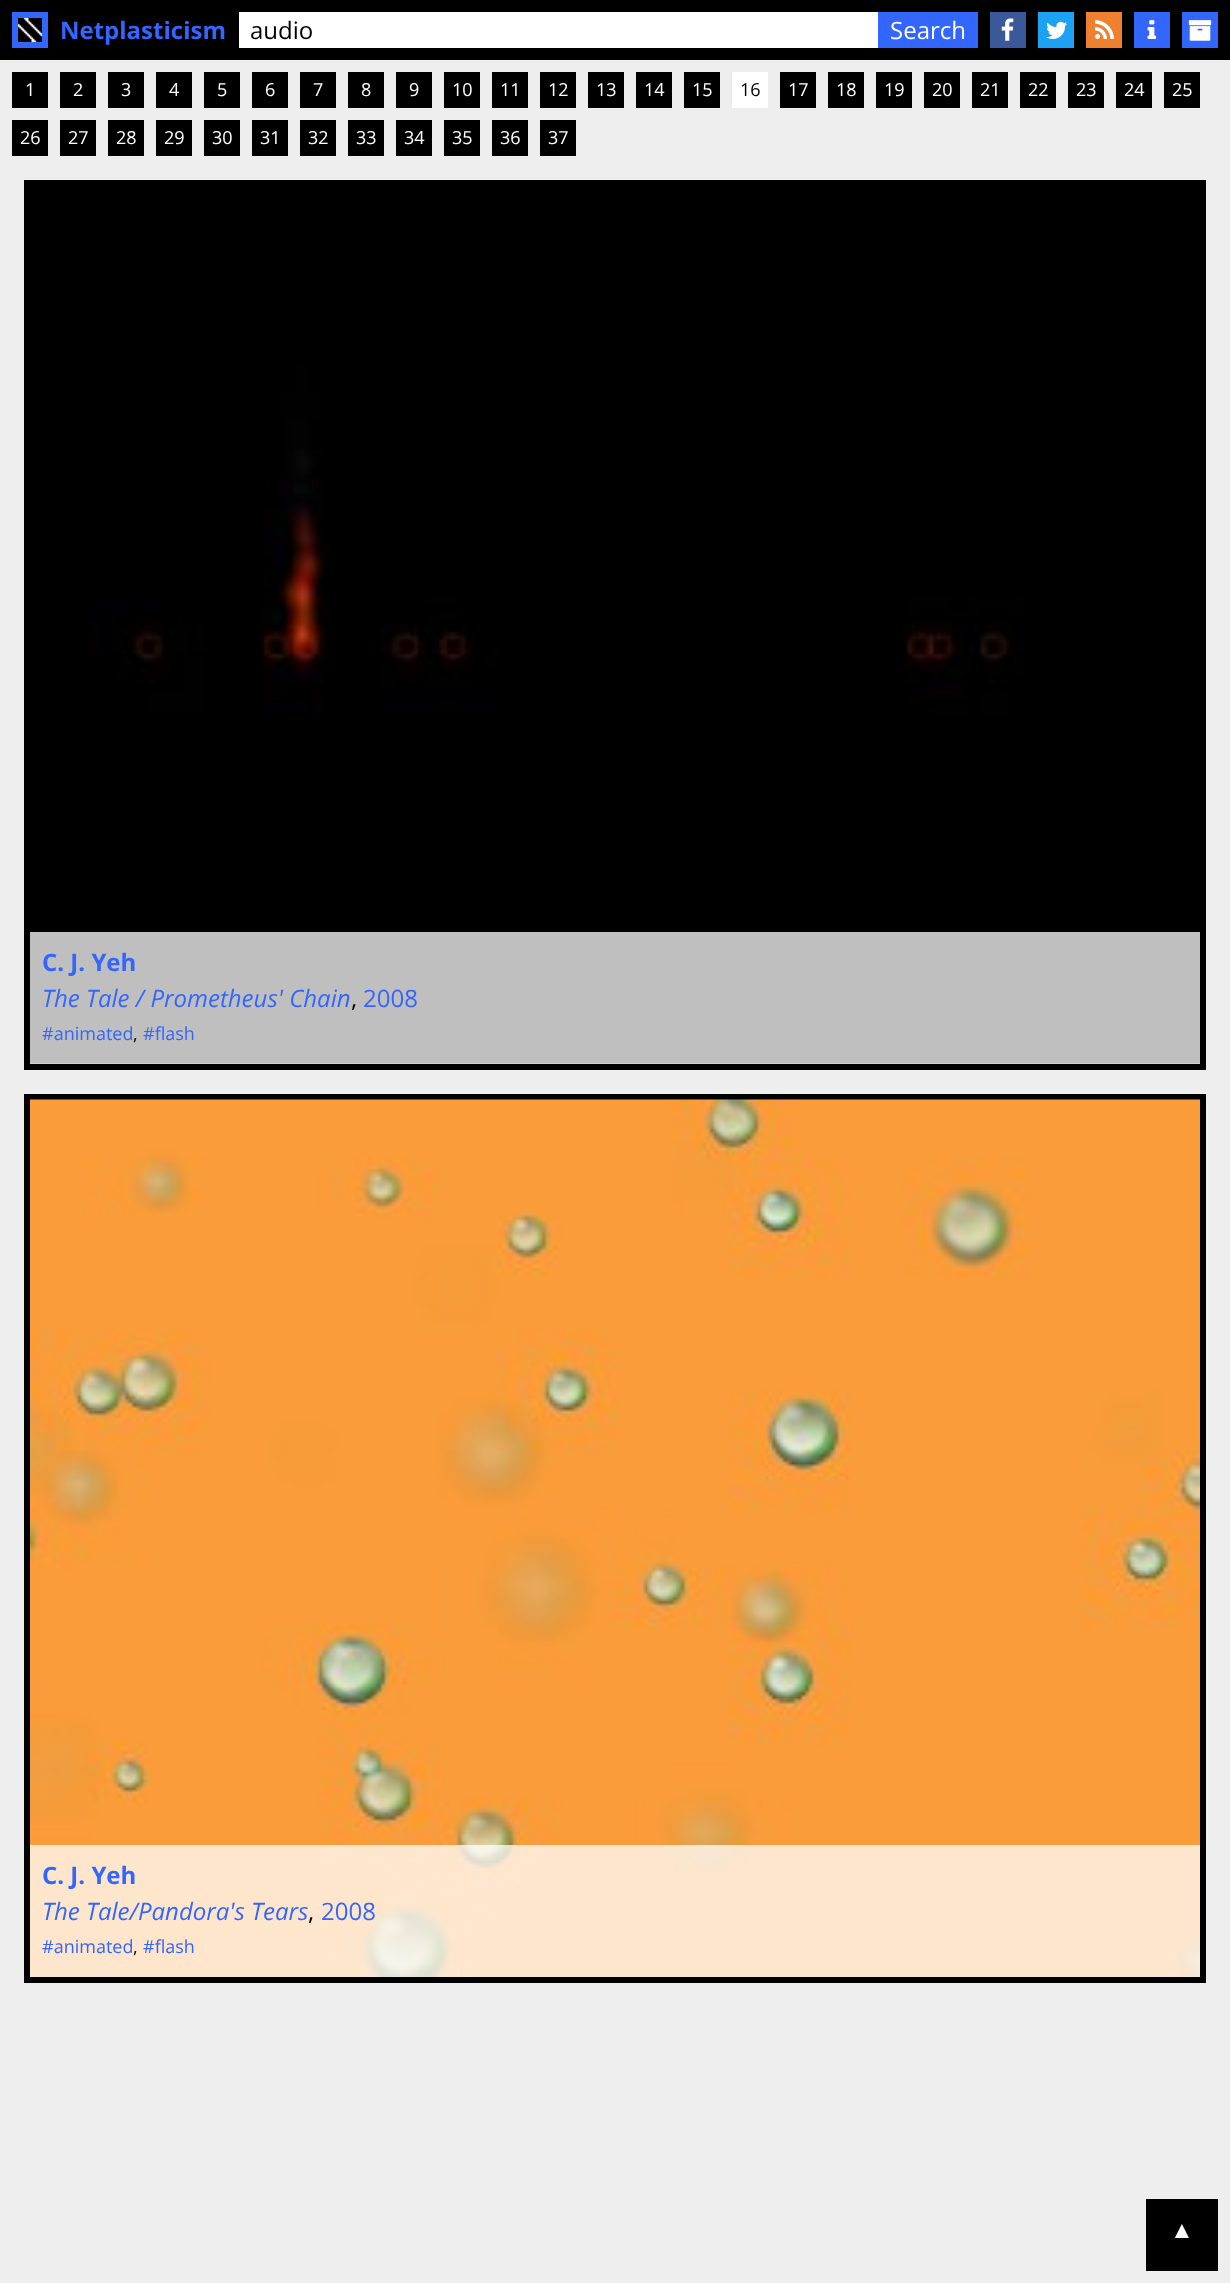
<!DOCTYPE html>
<meta charset="utf-8">
<style>body { margin: 0 } canvas { display: block }</style>
<canvas id="canvas" width="1230" height="2283"></canvas>
<img id="img1" src="images/1.png" hidden>
<img id="img2" src="images/2.png" hidden>
<img id="img3" src="images/3.png" hidden>
<img id="img4" src="images/4.png" hidden>
<img id="img5" src="images/5.png" hidden>
<img id="img6" src="images/6.png" hidden>
<img id="img7" src="images/7.png" hidden>
<img id="img8" src="images/8.png" hidden>
<script>
window.onload = function () {
    const canvas = document.getElementById('canvas');
    const context = canvas.getContext('2d');
    context.miterLimit = 4;
    context.fontKerning = 'normal';

    context.fillStyle = 'rgb(238, 238, 238)';
    context.fillRect(0, 0, 1230, 2283);
    context.fillStyle = 'rgb(0, 0, 0)';
    context.fillRect(0, 0, 1230, 60);
    context.strokeStyle = 'rgb(51, 102, 255)';
    context.lineWidth = 6;
    context.strokeRect(15, 15, 30, 30);
    context.drawImage(document.getElementById('img1'), 18, 18, 24, 24);
    context.fillStyle = 'rgb(255, 255, 255)';
    context.fillRect(239, 12, 639, 36);
    context.fillStyle = 'rgb(51, 102, 255)';
    context.fillRect(878, 12, 100, 36);
    context.fillStyle = 'rgb(59, 89, 152)';
    context.fillRect(990, 12, 36, 36);
    context.drawImage(document.getElementById('img2'), 1001, 18, 13, 23);
    context.fillStyle = 'rgb(29, 161, 242)';
    context.fillRect(1038, 12, 36, 36);
    context.drawImage(document.getElementById('img3'), 1046, 21, 21, 18);
    context.fillStyle = 'rgb(238, 128, 47)';
    context.fillRect(1086, 12, 36, 36);
    context.drawImage(document.getElementById('img4'), 1095, 20, 19, 19);
    context.fillStyle = 'rgb(51, 102, 255)';
    context.fillRect(1134, 12, 36, 36);
    context.drawImage(document.getElementById('img5'), 1147, 20, 10, 19);
    context.fillRect(1182, 12, 36, 36);
    context.drawImage(document.getElementById('img6'), 1188, 20, 24, 21);
    context.fillStyle = 'rgb(0, 0, 0)';
    context.fillRect(12, 72, 36, 36);
    context.fillRect(60, 72, 36, 36);
    context.fillRect(108, 72, 36, 36);
    context.fillRect(156, 72, 36, 36);
    context.fillRect(204, 72, 36, 36);
    context.fillRect(252, 72, 36, 36);
    context.fillRect(300, 72, 36, 36);
    context.fillRect(348, 72, 36, 36);
    context.fillRect(396, 72, 36, 36);
    context.fillRect(444, 72, 36, 36);
    context.fillRect(492, 72, 36, 36);
    context.fillRect(540, 72, 36, 36);
    context.fillRect(588, 72, 36, 36);
    context.fillRect(636, 72, 36, 36);
    context.fillRect(684, 72, 36, 36);
    context.fillStyle = 'rgb(255, 255, 255)';
    context.fillRect(732, 72, 36, 36);
    context.fillStyle = 'rgb(0, 0, 0)';
    context.fillRect(780, 72, 36, 36);
    context.fillRect(828, 72, 36, 36);
    context.fillRect(876, 72, 36, 36);
    context.fillRect(924, 72, 36, 36);
    context.fillRect(972, 72, 36, 36);
    context.fillRect(1020, 72, 36, 36);
    context.fillRect(1068, 72, 36, 36);
    context.fillRect(1116, 72, 36, 36);
    context.fillRect(1164, 72, 36, 36);
    context.fillRect(12, 120, 36, 36);
    context.fillRect(60, 120, 36, 36);
    context.fillRect(108, 120, 36, 36);
    context.fillRect(156, 120, 36, 36);
    context.fillRect(204, 120, 36, 36);
    context.fillRect(252, 120, 36, 36);
    context.fillRect(300, 120, 36, 36);
    context.fillRect(348, 120, 36, 36);
    context.fillRect(396, 120, 36, 36);
    context.fillRect(444, 120, 36, 36);
    context.fillRect(492, 120, 36, 36);
    context.fillRect(540, 120, 36, 36);
    context.strokeStyle = 'rgb(0, 0, 0)';
    context.strokeRect(27, 183, 1176, 884);
    context.fillStyle = 'rgb(153, 153, 153)';
    context.fillRect(30, 1063, 1170, 1);
    context.drawImage(document.getElementById('img7'), 30, 186, 1170, 878);
    context.fillStyle = 'rgba(255, 255, 255, 0.75)';
    context.fillRect(30, 932, 1170, 132);
    context.strokeRect(27, 1097, 1176, 883);
    context.drawImage(document.getElementById('img8'), 30, 1099, 1170, 878);
    context.fillRect(30, 1845, 1170, 132);
    context.fillStyle = 'rgb(0, 0, 0)';
    context.fillRect(1146, 2199, 72, 72);
    context.font = 'bold 24px Open Sans';
    context.fillStyle = 'rgb(51, 102, 255)';
    context.fillText('Netplasticism', 60, 39);
    context.font = '24px Open Sans';
    context.fillStyle = 'rgb(0, 0, 0)';
    context.fillText('audio', 250, 39);
    context.fillStyle = 'rgb(255, 255, 255)';
    context.fillText('Search', 890, 39);
    context.font = '18px Open Sans';
    context.fillText('1', 25, 96);
    context.fillText('2', 73, 96);
    context.fillText('3', 121, 96);
    context.fillText('4', 169, 96);
    context.fillText('5', 217, 96);
    context.fillText('6', 265, 96);
    context.fillText('7', 313, 96);
    context.fillText('8', 361, 96);
    context.fillText('9', 409, 96);
    context.fillText('10', 452, 96);
    context.fillText('11', 500, 96);
    context.fillText('12', 548, 96);
    context.fillText('13', 596, 96);
    context.fillText('14', 644, 96);
    context.fillText('15', 692, 96);
    context.fillStyle = 'rgb(0, 0, 0)';
    context.fillText('16', 740, 96);
    context.fillStyle = 'rgb(255, 255, 255)';
    context.fillText('17', 788, 96);
    context.fillText('18', 836, 96);
    context.fillText('19', 884, 96);
    context.fillText('20', 932, 96);
    context.fillText('21', 980, 96);
    context.fillText('22', 1028, 96);
    context.fillText('23', 1076, 96);
    context.fillText('24', 1124, 96);
    context.fillText('25', 1172, 96);
    context.fillText('26', 20, 144);
    context.fillText('27', 68, 144);
    context.fillText('28', 116, 144);
    context.fillText('29', 164, 144);
    context.fillText('30', 212, 144);
    context.fillText('31', 260, 144);
    context.fillText('32', 308, 144);
    context.fillText('33', 356, 144);
    context.fillText('34', 404, 144);
    context.fillText('35', 452, 144);
    context.fillText('36', 500, 144);
    context.fillText('37', 548, 144);
    context.font = 'bold 24px Open Sans';
    context.fillStyle = 'rgb(51, 102, 255)';
    context.fillText('C. J. Yeh', 42, 971);
    context.font = 'italic 24px Open Sans';
    context.fillText('The Tale / Prometheus\' Chain', 42, 1007);
    context.font = '24px Open Sans';
    context.fillStyle = 'rgb(0, 0, 0)';
    context.fillText(',', 351, 1007);
    context.fillStyle = 'rgb(51, 102, 255)';
    context.fillText('2008', 363, 1007);
    context.font = '18px Open Sans';
    context.fillText('#animated', 42, 1040);
    context.fillStyle = 'rgb(0, 0, 0)';
    context.fillText(',', 133, 1040);
    context.fillStyle = 'rgb(51, 102, 255)';
    context.fillText('#flash', 143, 1040);
    context.font = 'bold 24px Open Sans';
    context.fillText('C. J. Yeh', 42, 1884);
    context.font = 'italic 24px Open Sans';
    context.fillText('The Tale/Pandora\'s Tears', 42, 1920);
    context.font = '24px Open Sans';
    context.fillStyle = 'rgb(0, 0, 0)';
    context.fillText(',', 308, 1920);
    context.fillStyle = 'rgb(51, 102, 255)';
    context.fillText('2008', 321, 1920);
    context.font = '18px Open Sans';
    context.fillText('#animated', 42, 1953);
    context.fillStyle = 'rgb(0, 0, 0)';
    context.fillText(',', 133, 1953);
    context.fillStyle = 'rgb(51, 102, 255)';
    context.fillText('#flash', 143, 1953);
    context.font = '24px Liberation Sans';
    context.fillStyle = 'rgb(255, 255, 255)';
    context.fillText('▲', 1170, 2238);
};
</script>
